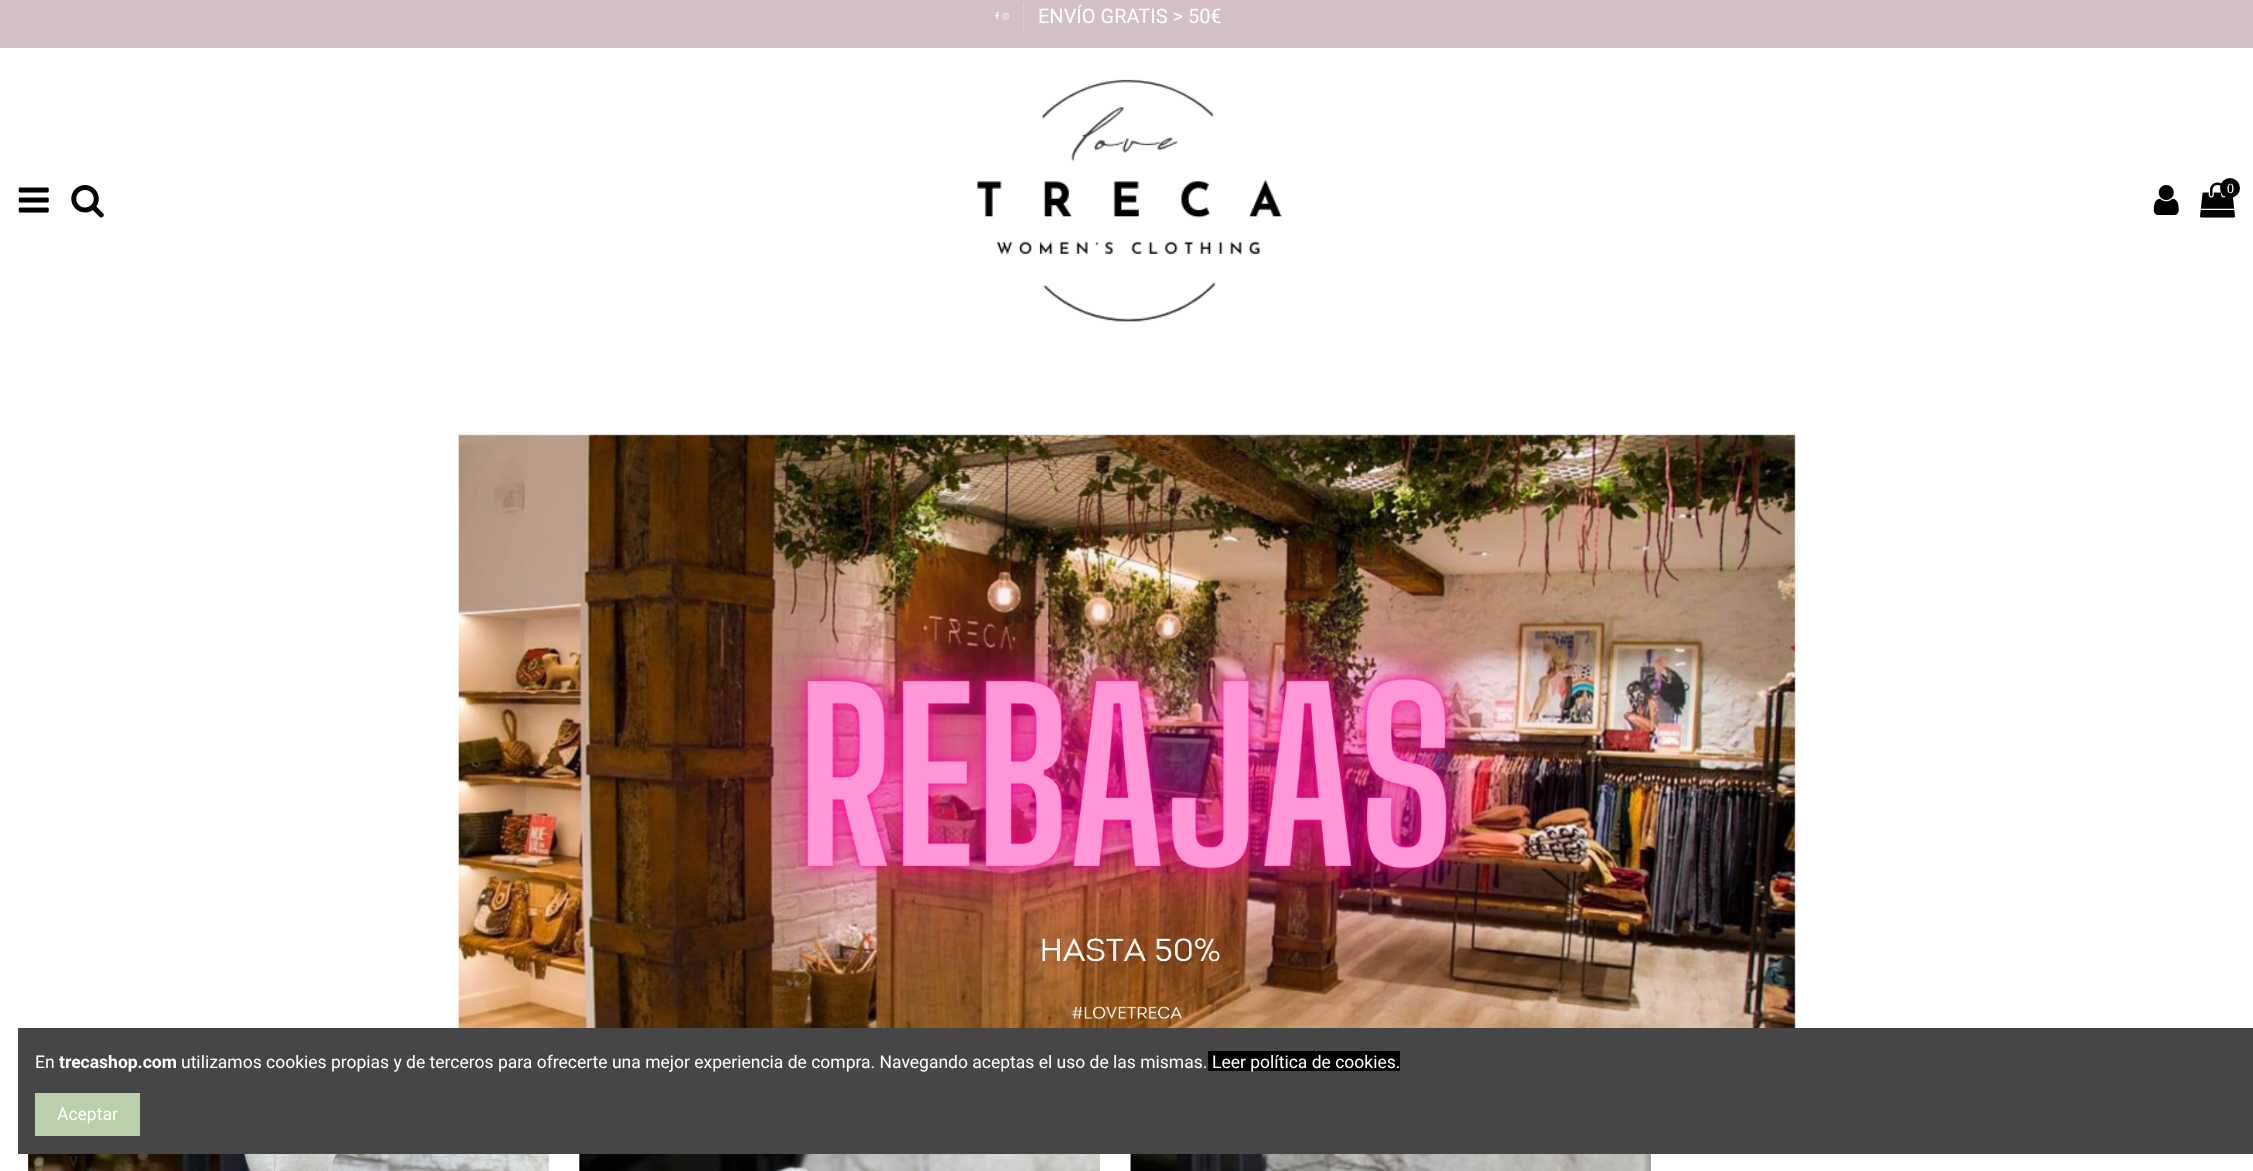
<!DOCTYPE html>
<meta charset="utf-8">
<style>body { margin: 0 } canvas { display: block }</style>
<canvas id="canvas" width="2253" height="1171"></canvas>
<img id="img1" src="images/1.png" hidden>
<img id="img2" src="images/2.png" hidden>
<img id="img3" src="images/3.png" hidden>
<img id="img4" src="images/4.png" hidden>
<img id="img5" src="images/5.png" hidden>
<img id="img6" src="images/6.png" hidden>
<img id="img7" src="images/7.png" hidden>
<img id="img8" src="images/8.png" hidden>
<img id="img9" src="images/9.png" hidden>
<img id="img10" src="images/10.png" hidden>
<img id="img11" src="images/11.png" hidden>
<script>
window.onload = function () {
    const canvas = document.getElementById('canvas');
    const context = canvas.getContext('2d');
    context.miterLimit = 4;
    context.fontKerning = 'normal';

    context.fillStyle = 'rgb(255, 255, 255)';
    context.fillRect(0, 0, 2253, 1171);
    context.fillStyle = 'rgb(211, 192, 200)';
    context.fillRect(0, 0, 2253, 48);
    context.drawImage(document.getElementById('img1'), 995, 12, 4, 8);
    context.drawImage(document.getElementById('img2'), 1002, 12, 7, 8);
    context.fillStyle = 'rgb(220, 205, 211)';
    context.fillRect(1023, 3, 1, 30);
    context.drawImage(document.getElementById('img3'), 18, 187, 31, 26);
    context.drawImage(document.getElementById('img4'), 71, 185, 33, 33);
    context.drawImage(document.getElementById('img5'), 976, 79, 306, 243);
    context.drawImage(document.getElementById('img6'), 2153, 185, 26, 30);
    context.drawImage(document.getElementById('img7'), 2200, 182, 35, 36);
    context.fillStyle = 'rgb(0, 0, 0)';
    context.beginPath();
    context.arc(2230, 188, 10, 0, 2 * Math.PI);
    context.fill();
    context.drawImage(document.getElementById('img8'), 458, 434, 1338, 594);
    context.drawImage(document.getElementById('img9'), 28, 1154, 521, 17);
    context.drawImage(document.getElementById('img10'), 579, 1154, 521, 17);
    context.drawImage(document.getElementById('img11'), 1130, 1154, 521, 17);
    context.fillStyle = 'rgb(70, 70, 70)';
    context.fillRect(18, 1028, 2235, 126);
    context.fillStyle = 'rgb(0, 0, 0)';
    context.fillRect(1208, 1051, 192, 20);
    context.fillStyle = 'rgb(186, 208, 171)';
    context.fillRect(35, 1093, 105, 43);
    context.font = '20px Roboto';
    context.fillStyle = 'rgb(255, 255, 255)';
    context.fillText('ENVÍO GRATIS > 50€', 1038, 23);
    context.font = '14px Liberation Serif';
    context.fillText('0', 2227, 193);
    context.letterSpacing = '2px';
    context.font = 'bold 14px Roboto';
    context.fillStyle = 'rgb(44, 34, 19)';
    context.fillText('V', 69, 1166);
    context.letterSpacing = '0px';
    context.font = '17.5px Roboto';
    context.fillStyle = 'rgb(255, 255, 255)';
    context.fillText('En', 35, 1068);
    context.font = 'bold 17.5px Roboto';
    context.fillText('trecashop.com', 59, 1068);
    context.font = '17.5px Roboto';
    context.fillText('utilizamos cookies propias y de terceros para ofrecerte una mejor experiencia de compra. Navegando aceptas el uso de las mismas.', 181, 1068);
    context.fillText('Leer política de cookies.', 1212, 1068);
    context.fillText('Aceptar', 57, 1120);
};
</script>
